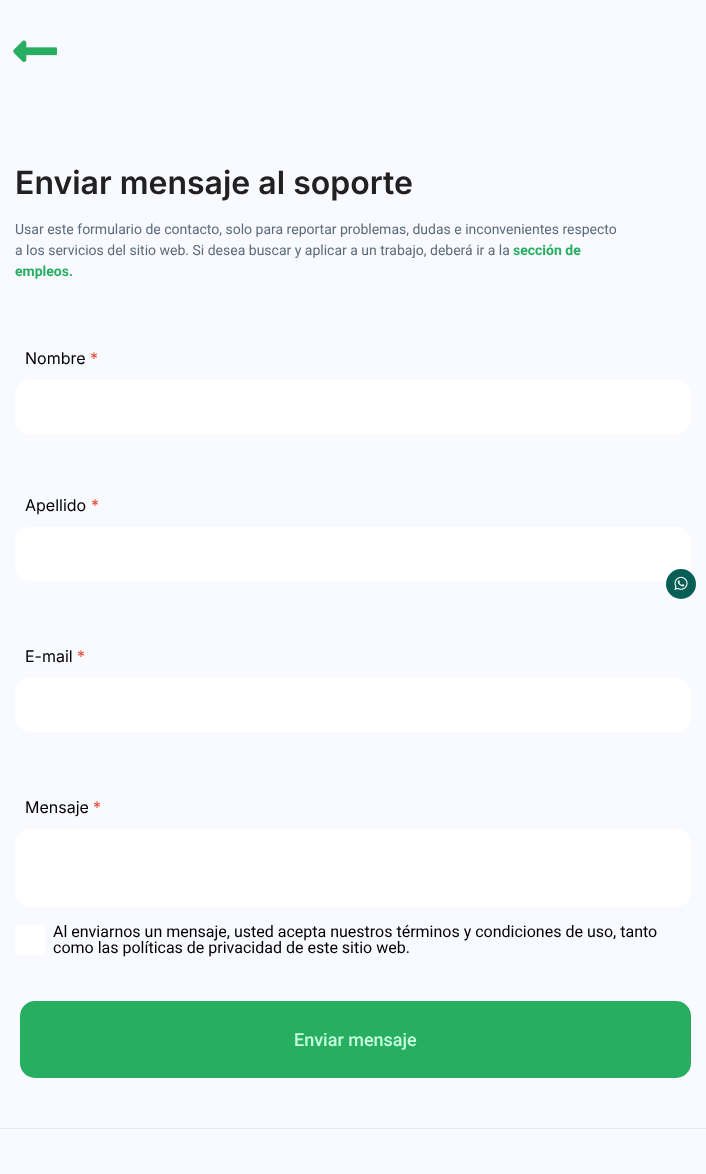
<!DOCTYPE html>
<meta charset="utf-8">
<style>body { margin: 0 } canvas { display: block }</style>
<canvas id="canvas" width="706" height="1174"></canvas>
<img id="img1" src="images/1.png" hidden>
<img id="img2" src="images/2.png" hidden>
<script>
window.onload = function () {
    const canvas = document.getElementById('canvas');
    const context = canvas.getContext('2d');
    context.miterLimit = 4;
    context.fontKerning = 'normal';

    context.fillStyle = 'rgb(248, 250, 255)';
    context.fillRect(0, 0, 706, 1174);
    context.drawImage(document.getElementById('img1'), 13, 40, 44, 22);
    context.fillStyle = 'rgb(255, 255, 255)';
    context.beginPath();
    context.roundRect(15, 380, 676, 54, 15);
    context.fill();
    context.beginPath();
    context.roundRect(15, 527, 676, 54, 15);
    context.fill();
    context.beginPath();
    context.roundRect(15, 678, 676, 54, 15);
    context.fill();
    context.beginPath();
    context.roundRect(15, 829, 676, 78, 15);
    context.fill();
    context.beginPath();
    context.roundRect(15, 925, 30, 30, 3);
    context.fill();
    context.fillStyle = 'rgb(39, 174, 96)';
    context.beginPath();
    context.roundRect(20, 1001, 671, 77, 15);
    context.fill();
    context.fillStyle = 'rgb(7, 94, 84)';
    context.beginPath();
    context.arc(681, 584, 15, 0, 2 * Math.PI);
    context.fill();
    context.drawImage(document.getElementById('img2'), 674, 576, 14, 14);
    context.fillStyle = 'rgb(231, 233, 237)';
    context.fillRect(0, 1128, 706, 1);
    context.font = '600 32px Inter';
    context.fillStyle = 'rgb(33, 33, 33)';
    context.fillText('Enviar mensaje al soporte', 15, 194);
    context.font = '14px Roboto';
    context.fillStyle = 'rgb(92, 107, 121)';
    context.fillText('Usar este formulario de contacto, solo para reportar problemas, dudas e inconvenientes respecto', 15, 234);
    context.fillText('a los servicios del sitio web. Si desea buscar y aplicar a un trabajo, deberá ir a la', 15, 255);
    context.font = 'bold 14px Roboto';
    context.fillStyle = 'rgb(39, 174, 96)';
    context.fillText('sección de', 513, 255);
    context.fillText('empleos.', 15, 276);
    context.font = '16px Inter';
    context.fillStyle = 'rgb(0, 0, 0)';
    context.fillText('Nombre', 25, 364);
    context.fillStyle = 'rgb(231, 76, 60)';
    context.fillText('*', 90, 364);
    context.fillStyle = 'rgb(0, 0, 0)';
    context.fillText('Apellido', 25, 511);
    context.fillStyle = 'rgb(231, 76, 60)';
    context.fillText('*', 91, 511);
    context.fillStyle = 'rgb(0, 0, 0)';
    context.fillText('E-mail', 25, 662);
    context.fillStyle = 'rgb(231, 76, 60)';
    context.fillText('*', 77, 662);
    context.fillStyle = 'rgb(0, 0, 0)';
    context.fillText('Mensaje', 25, 813);
    context.fillStyle = 'rgb(231, 76, 60)';
    context.fillText('*', 93, 813);
    context.font = '16px Roboto';
    context.fillStyle = 'rgb(0, 0, 0)';
    context.fillText('Al enviarnos un mensaje, usted acepta nuestros términos y condiciones de uso, tanto', 53, 937);
    context.fillText('como las políticas de privacidad de este sitio web.', 53, 953);
    context.font = '500 18px Roboto';
    context.fillStyle = 'rgb(198, 255, 222)';
    context.fillText('Enviar mensaje', 294, 1046);
};
</script>
